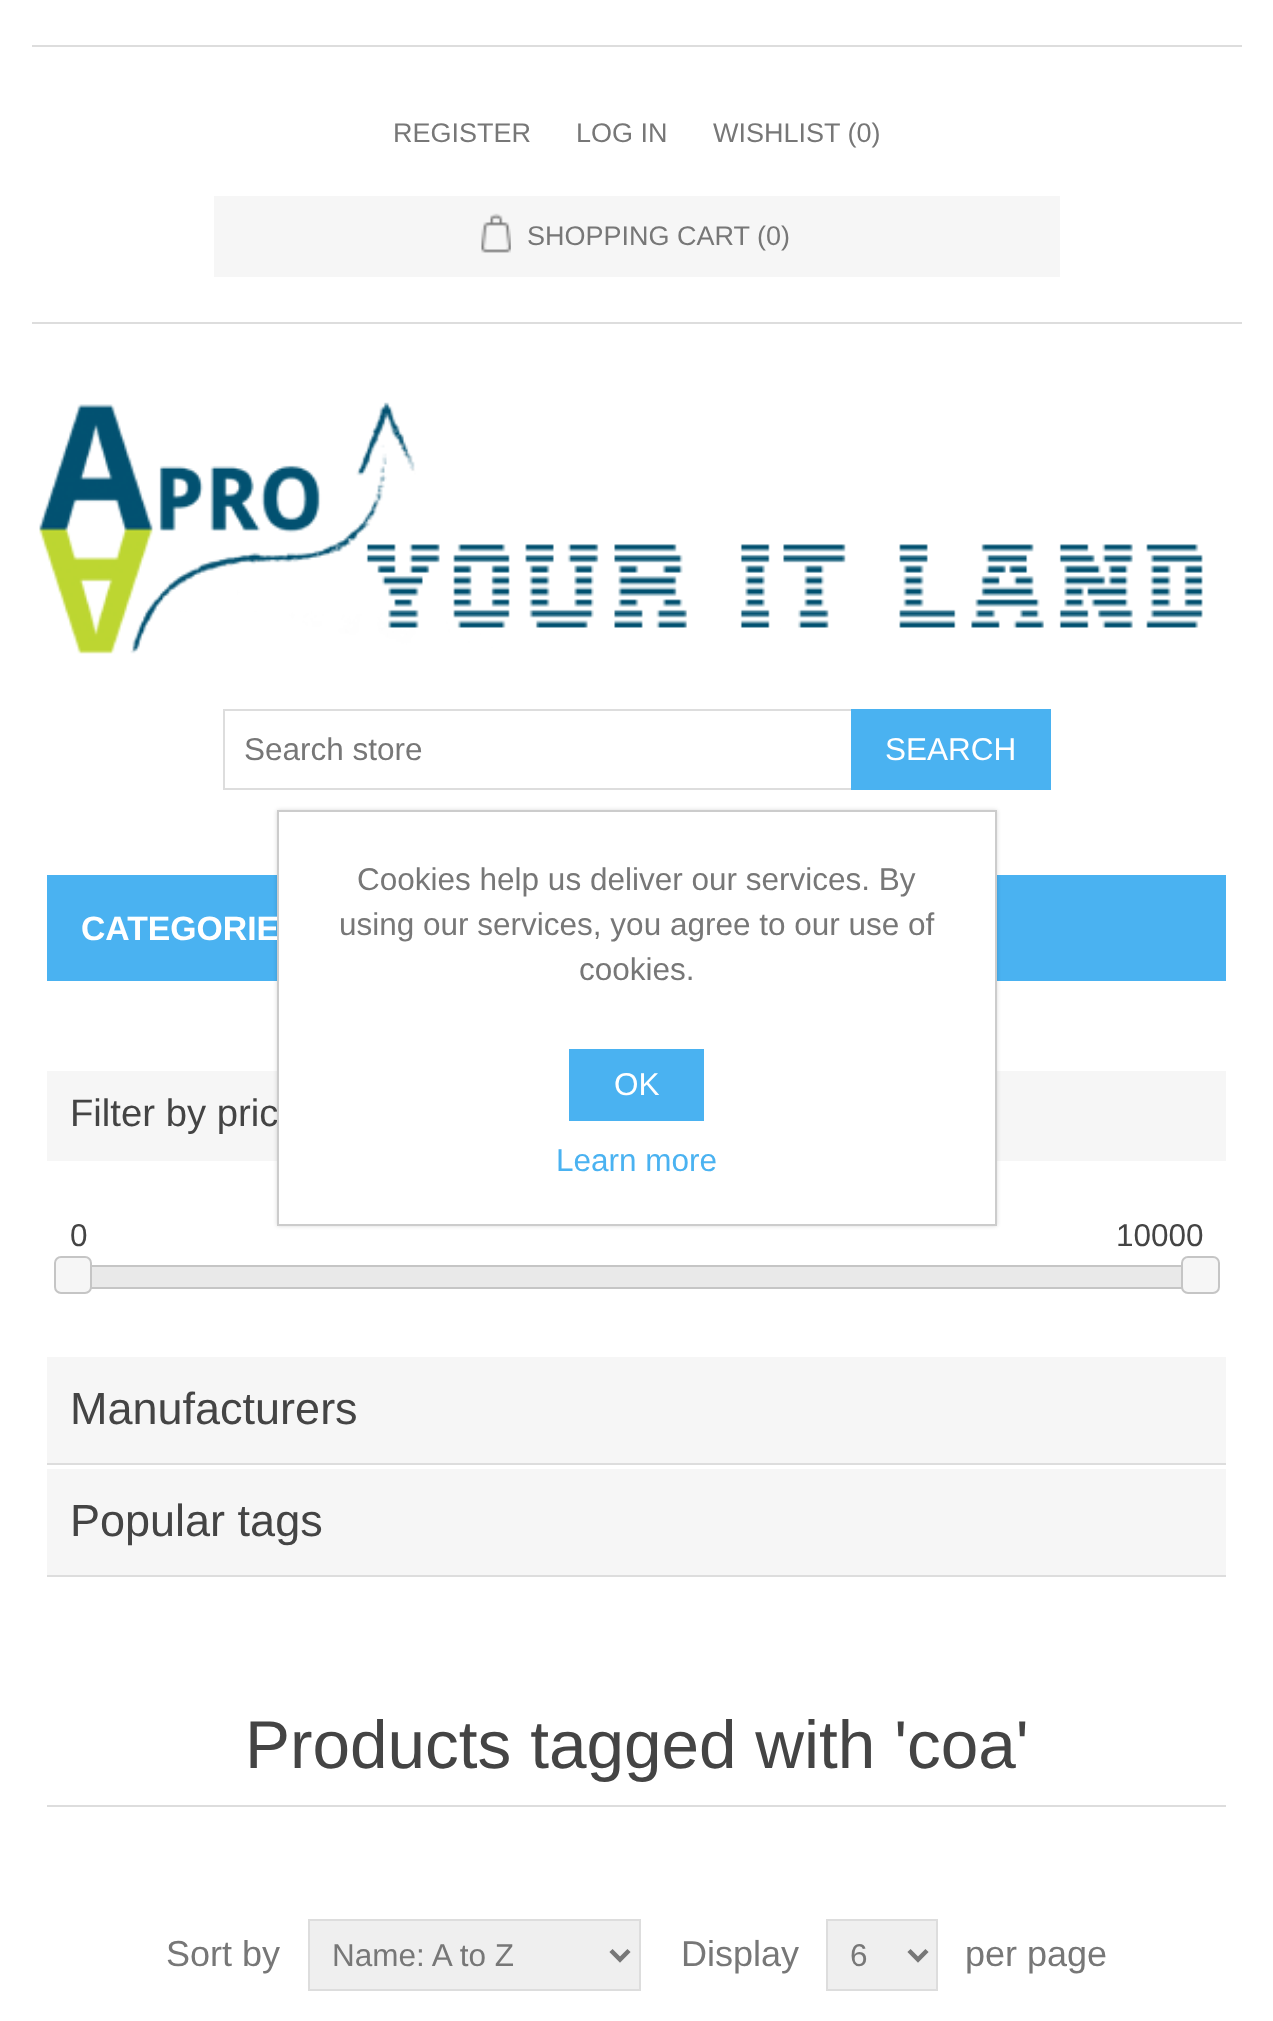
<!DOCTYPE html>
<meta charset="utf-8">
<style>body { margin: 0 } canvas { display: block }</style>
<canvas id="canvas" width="1273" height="2021"></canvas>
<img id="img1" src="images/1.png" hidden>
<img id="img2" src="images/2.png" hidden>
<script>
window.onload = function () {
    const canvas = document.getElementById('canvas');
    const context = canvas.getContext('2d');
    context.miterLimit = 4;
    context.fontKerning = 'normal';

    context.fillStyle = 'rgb(255, 255, 255)';
    context.fillRect(0, 0, 1273, 2021);
    context.fillStyle = 'rgb(221, 221, 221)';
    context.fillRect(32, 322, 1210, 2);
    context.fillRect(32, 45, 1210, 2);
    context.fillStyle = 'rgb(246, 246, 246)';
    context.fillRect(214, 196, 846, 81);
    context.drawImage(document.getElementById('img1'), 481, 213, 30, 40);
    context.drawImage(document.getElementById('img2'), 39, 402, 1164, 252);
    context.strokeStyle = 'rgb(221, 221, 221)';
    context.lineWidth = 2;
    context.strokeRect(224, 710, 628, 79);
    context.fillStyle = 'rgb(74, 178, 241)';
    context.fillRect(851, 709, 200, 81);
    context.fillRect(47, 875, 1179, 106);
    context.fillStyle = 'rgb(246, 246, 246)';
    context.fillRect(47, 1071, 1179, 90);
    context.strokeStyle = 'rgb(197, 197, 197)';
    context.strokeRect(71, 1266, 1132, 22);
    context.beginPath();
    context.roundRect(55, 1257, 36, 36, 6);
    context.fill();
    context.stroke();
    context.fillStyle = 'rgb(233, 233, 233)';
    context.fillRect(92, 1267, 1089, 20);
    context.fillStyle = 'rgb(246, 246, 246)';
    context.beginPath();
    context.roundRect(1182, 1257, 37, 36, 6);
    context.fill();
    context.stroke();
    context.fillRect(47, 1357, 1179, 106);
    context.fillStyle = 'rgb(221, 221, 221)';
    context.fillRect(47, 1463, 1179, 2);
    context.fillStyle = 'rgb(246, 246, 246)';
    context.fillRect(47, 1469, 1179, 106);
    context.fillStyle = 'rgb(221, 221, 221)';
    context.fillRect(47, 1575, 1179, 2);
    context.fillRect(47, 1805, 1179, 2);
    context.fillStyle = 'rgb(239, 239, 239)';
    context.beginPath();
    context.rect(309, 1920, 331, 70);
    context.fill();
    context.strokeStyle = 'rgb(221, 221, 221)';
    context.stroke();
    context.beginPath();
    context.moveTo(611, 1950.5);
    context.lineTo(620, 1959.5);
    context.lineTo(629, 1950.5);
    context.strokeStyle = 'rgb(119, 119, 119)';
    context.lineWidth = 4.5;
    context.stroke();
    context.beginPath();
    context.rect(827, 1920, 110, 70);
    context.fill();
    context.strokeStyle = 'rgb(221, 221, 221)';
    context.lineWidth = 2;
    context.stroke();
    context.beginPath();
    context.moveTo(909, 1950.5);
    context.lineTo(918, 1959.5);
    context.lineTo(927, 1950.5);
    context.strokeStyle = 'rgb(119, 119, 119)';
    context.lineWidth = 4.5;
    context.stroke();
    context.fillStyle = 'rgba(0, 0, 0, 0.15)';
    context.filter = 'blur(2px)';
    context.beginPath();
    context.rect(277, 810, 720, 416);
    context.fill();
    context.filter = 'none';
    context.font = '27px Liberation Sans';
    context.fillStyle = 'rgb(119, 119, 119)';
    context.fillText('REGISTER', 393, 142);
    context.fillText('LOG IN', 576, 142);
    context.fillText('WISHLIST (0)', 713, 142);
    context.fillText('SHOPPING CART (0)', 527, 245);
    context.font = '31.5px Liberation Sans';
    context.fillText('Search store', 244, 760);
    context.fillStyle = 'rgb(255, 255, 255)';
    context.fillText('SEARCH', 885, 760);
    context.font = 'bold 33.75px Liberation Sans';
    context.fillText('CATEGORIE', 81, 940);
    context.font = '38.25px Liberation Sans';
    context.fillStyle = 'rgb(68, 68, 68)';
    context.fillText('Filter by pric', 70, 1126);
    context.font = '31.5px Liberation Sans';
    context.fillText('0', 70, 1246);
    context.fillText('10000', 1116, 1246);
    context.font = '45px Liberation Sans';
    context.fillText('Manufacturers', 70, 1424);
    context.fillText('Popular tags', 70, 1536);
    context.font = '67.5px Liberation Sans';
    context.fillText('Products tagged with \'coa\'', 245, 1768);
    context.font = '36px Liberation Sans';
    context.fillStyle = 'rgb(119, 119, 119)';
    context.fillText('Sort by', 166, 1966);
    context.font = '31.5px Liberation Sans';
    context.fillText('Name: A to Z', 332, 1966);
    context.font = '36px Liberation Sans';
    context.fillText('Display', 681, 1966);
    context.font = '31.5px Liberation Sans';
    context.fillText('6', 850, 1966);
    context.font = '36px Liberation Sans';
    context.fillText('per page', 965, 1966);
    context.fillStyle = 'rgb(255, 255, 255)';
    context.beginPath();
    context.rect(278, 811, 718, 414);
    context.fill();
    context.strokeStyle = 'rgb(204, 204, 204)';
    context.lineWidth = 2;
    context.stroke();
    context.font = '31.5px Liberation Sans';
    context.fillStyle = 'rgb(119, 119, 119)';
    context.fillText('Cookies help us deliver our services. By', 357, 890);
    context.fillText('using our services, you agree to our use of', 339, 935);
    context.fillText('cookies.', 579, 980);
    context.fillStyle = 'rgb(74, 178, 241)';
    context.fillRect(569, 1049, 135, 72);
    context.fillStyle = 'rgb(255, 255, 255)';
    context.fillText('OK', 614, 1095);
    context.fillStyle = 'rgb(74, 178, 241)';
    context.fillText('Learn more', 556, 1171);
};
</script>
